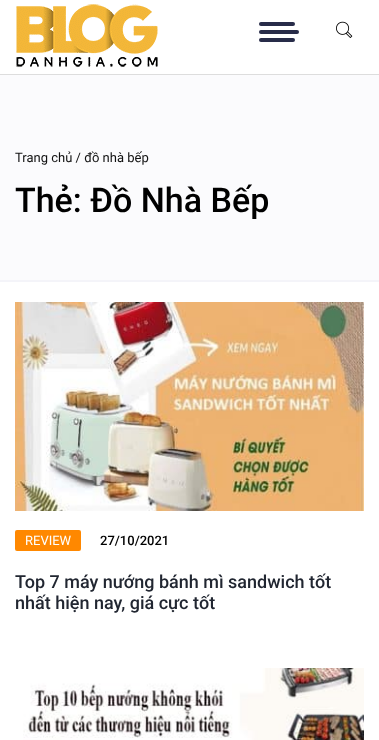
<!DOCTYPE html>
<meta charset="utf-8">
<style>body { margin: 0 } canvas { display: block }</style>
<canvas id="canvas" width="379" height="740"></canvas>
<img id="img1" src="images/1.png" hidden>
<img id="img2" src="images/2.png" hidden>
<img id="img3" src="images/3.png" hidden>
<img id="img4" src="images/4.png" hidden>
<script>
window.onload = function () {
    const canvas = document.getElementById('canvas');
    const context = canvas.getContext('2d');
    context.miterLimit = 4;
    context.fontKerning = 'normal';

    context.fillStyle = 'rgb(255, 255, 255)';
    context.fillRect(0, 0, 379, 740);
    context.fillStyle = 'rgb(221, 221, 221)';
    context.fillRect(0, 74, 379, 1);
    context.drawImage(document.getElementById('img1'), 15, 4, 144, 64);
    context.fillStyle = 'rgb(40, 44, 73)';
    context.beginPath();
    context.roundRect(259, 38, 36, 4, 2);
    context.fill();
    context.beginPath();
    context.roundRect(259, 22, 36, 4, 2);
    context.fill();
    context.beginPath();
    context.roundRect(259, 30, 40, 4, 2);
    context.fill();
    context.drawImage(document.getElementById('img2'), 336, 21, 17, 17);
    context.fillStyle = 'rgb(251, 251, 253)';
    context.fillRect(0, 75, 379, 205);
    context.fillStyle = 'rgb(244, 244, 249)';
    context.fillRect(0, 280, 379, 2);
    context.drawImage(document.getElementById('img3'), 15, 302, 349, 209);
    context.fillStyle = 'rgb(255, 136, 0)';
    context.beginPath();
    context.roundRect(15, 530, 66, 21, 2);
    context.fill();
    context.drawImage(document.getElementById('img4'), 23, 668, 341, 72);
    context.font = '13px Roboto';
    context.fillStyle = 'rgb(17, 17, 17)';
    context.fillText('Trang chủ / đồ nhà bếp', 15, 162);
    context.font = '500 34px Roboto';
    context.fillStyle = 'rgb(0, 0, 0)';
    context.fillText('Thẻ: Đồ Nhà Bếp', 15, 212);
    context.font = '13px Roboto';
    context.fillStyle = 'rgb(255, 255, 255)';
    context.fillText('REVIEW', 25, 545);
    context.font = '500 13px Roboto';
    context.fillStyle = 'rgb(0, 0, 0)';
    context.fillText('27/10/2021', 100, 545);
    context.font = '500 18px Roboto';
    context.fillStyle = 'rgb(33, 38, 49)';
    context.fillText('Top 7 máy nướng bánh mì sandwich tốt', 15, 588);
    context.fillText('nhất hiện nay, giá cực tốt', 15, 609);
};
</script>
